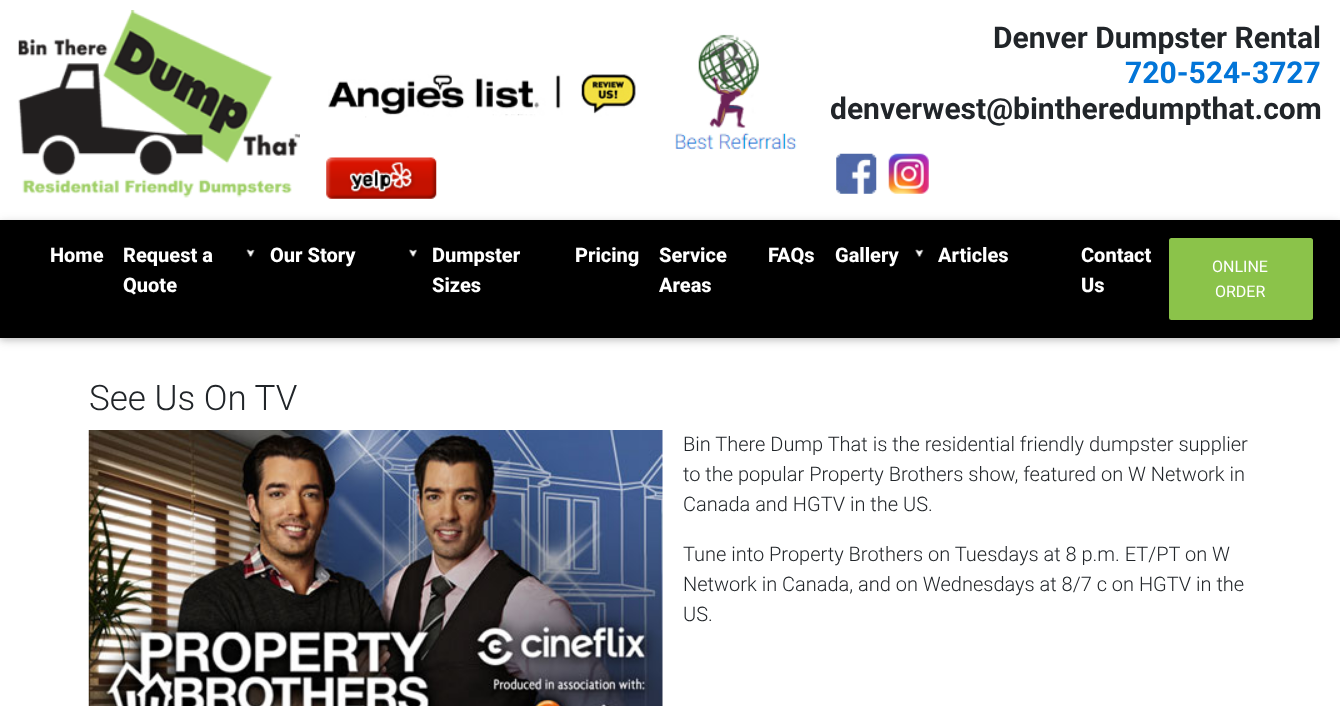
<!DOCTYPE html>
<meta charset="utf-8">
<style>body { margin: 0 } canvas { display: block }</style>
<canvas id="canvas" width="1340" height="706"></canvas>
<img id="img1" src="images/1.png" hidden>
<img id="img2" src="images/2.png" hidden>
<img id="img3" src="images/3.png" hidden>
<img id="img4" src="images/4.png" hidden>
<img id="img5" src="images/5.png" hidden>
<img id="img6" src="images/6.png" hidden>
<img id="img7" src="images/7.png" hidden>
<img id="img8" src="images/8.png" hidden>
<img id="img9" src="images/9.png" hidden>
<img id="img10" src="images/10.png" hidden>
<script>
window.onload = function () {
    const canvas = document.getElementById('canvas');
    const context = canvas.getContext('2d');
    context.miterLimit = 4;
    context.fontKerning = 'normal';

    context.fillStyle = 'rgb(255, 255, 255)';
    context.fillRect(0, 0, 1340, 706);
    context.drawImage(document.getElementById('img1'), 18, 10, 282, 188);
    context.drawImage(document.getElementById('img2'), 328, 74, 308, 44);
    context.drawImage(document.getElementById('img3'), 675, 34, 122, 116);
    context.drawImage(document.getElementById('img4'), 326, 157, 111, 42);
    context.drawImage(document.getElementById('img5'), 836, 153, 41, 41);
    context.drawImage(document.getElementById('img6'), 888, 153, 41, 41);
    context.fillStyle = 'rgba(0, 0, 0, 0.12)';
    context.filter = 'blur(6px)';
    context.beginPath();
    context.rect(0, 223, 1340, 117);
    context.fill();
    context.filter = 'none';
    context.fillStyle = 'rgba(0, 0, 0, 0.16)';
    context.filter = 'blur(3px)';
    context.beginPath();
    context.rect(0, 223, 1340, 117);
    context.fill();
    context.filter = 'none';
    context.fillStyle = 'rgb(0, 0, 0)';
    context.fillRect(0, 220, 1340, 118);
    context.drawImage(document.getElementById('img7'), 246, 249, 9, 9);
    context.drawImage(document.getElementById('img8'), 409, 249, 8, 9);
    context.drawImage(document.getElementById('img9'), 915, 249, 9, 9);
    context.fillStyle = 'rgb(139, 195, 74)';
    context.beginPath();
    context.roundRect(1169, 238, 144, 82, 2.5);
    context.fill();
    context.drawImage(document.getElementById('img10'), 88, 430, 575, 276);
    context.font = 'bold 30px Roboto';
    context.fillStyle = 'rgb(33, 37, 41)';
    context.fillText('Denver Dumpster Rental', 993, 48);
    context.fillStyle = 'rgb(2, 117, 216)';
    context.fillText('720-524-3727', 1125, 83);
    context.fillStyle = 'rgb(33, 37, 41)';
    context.fillText('denverwest@bintheredumpthat.com', 830, 119);
    context.font = '800 20px Roboto';
    context.fillStyle = 'rgb(255, 255, 255)';
    context.fillText('Home', 50, 262);
    context.fillText('Request a', 123, 262);
    context.fillText('Quote', 123, 292);
    context.fillText('Our Story', 270, 262);
    context.fillText('Dumpster', 432, 262);
    context.fillText('Sizes', 432, 292);
    context.fillText('Pricing', 575, 262);
    context.fillText('Service', 659, 262);
    context.fillText('Areas', 659, 292);
    context.fillText('FAQs', 768, 262);
    context.fillText('Gallery', 835, 262);
    context.fillText('Articles', 938, 262);
    context.fillText('Contact', 1081, 262);
    context.fillText('Us', 1081, 292);
    context.font = '16px Roboto';
    context.fillText('ONLINE', 1212, 272);
    context.fillText('ORDER', 1215, 297);
    context.font = '300 35px Roboto';
    context.fillStyle = 'rgb(33, 37, 41)';
    context.fillText('See Us On TV', 89, 410);
    context.font = '300 20px Roboto';
    context.fillText('Bin There Dump That is the residential friendly dumpster supplier', 683, 451);
    context.fillText('to the popular Property Brothers show, featured on W Network in', 683, 481);
    context.fillText('Canada and HGTV in the US.', 683, 511);
    context.fillText('Tune into Property Brothers on Tuesdays at 8 p.m. ET/PT on W', 683, 561);
    context.fillText('Network in Canada, and on Wednesdays at 8/7 c on HGTV in the', 683, 591);
    context.fillText('US.', 683, 621);
};
</script>
